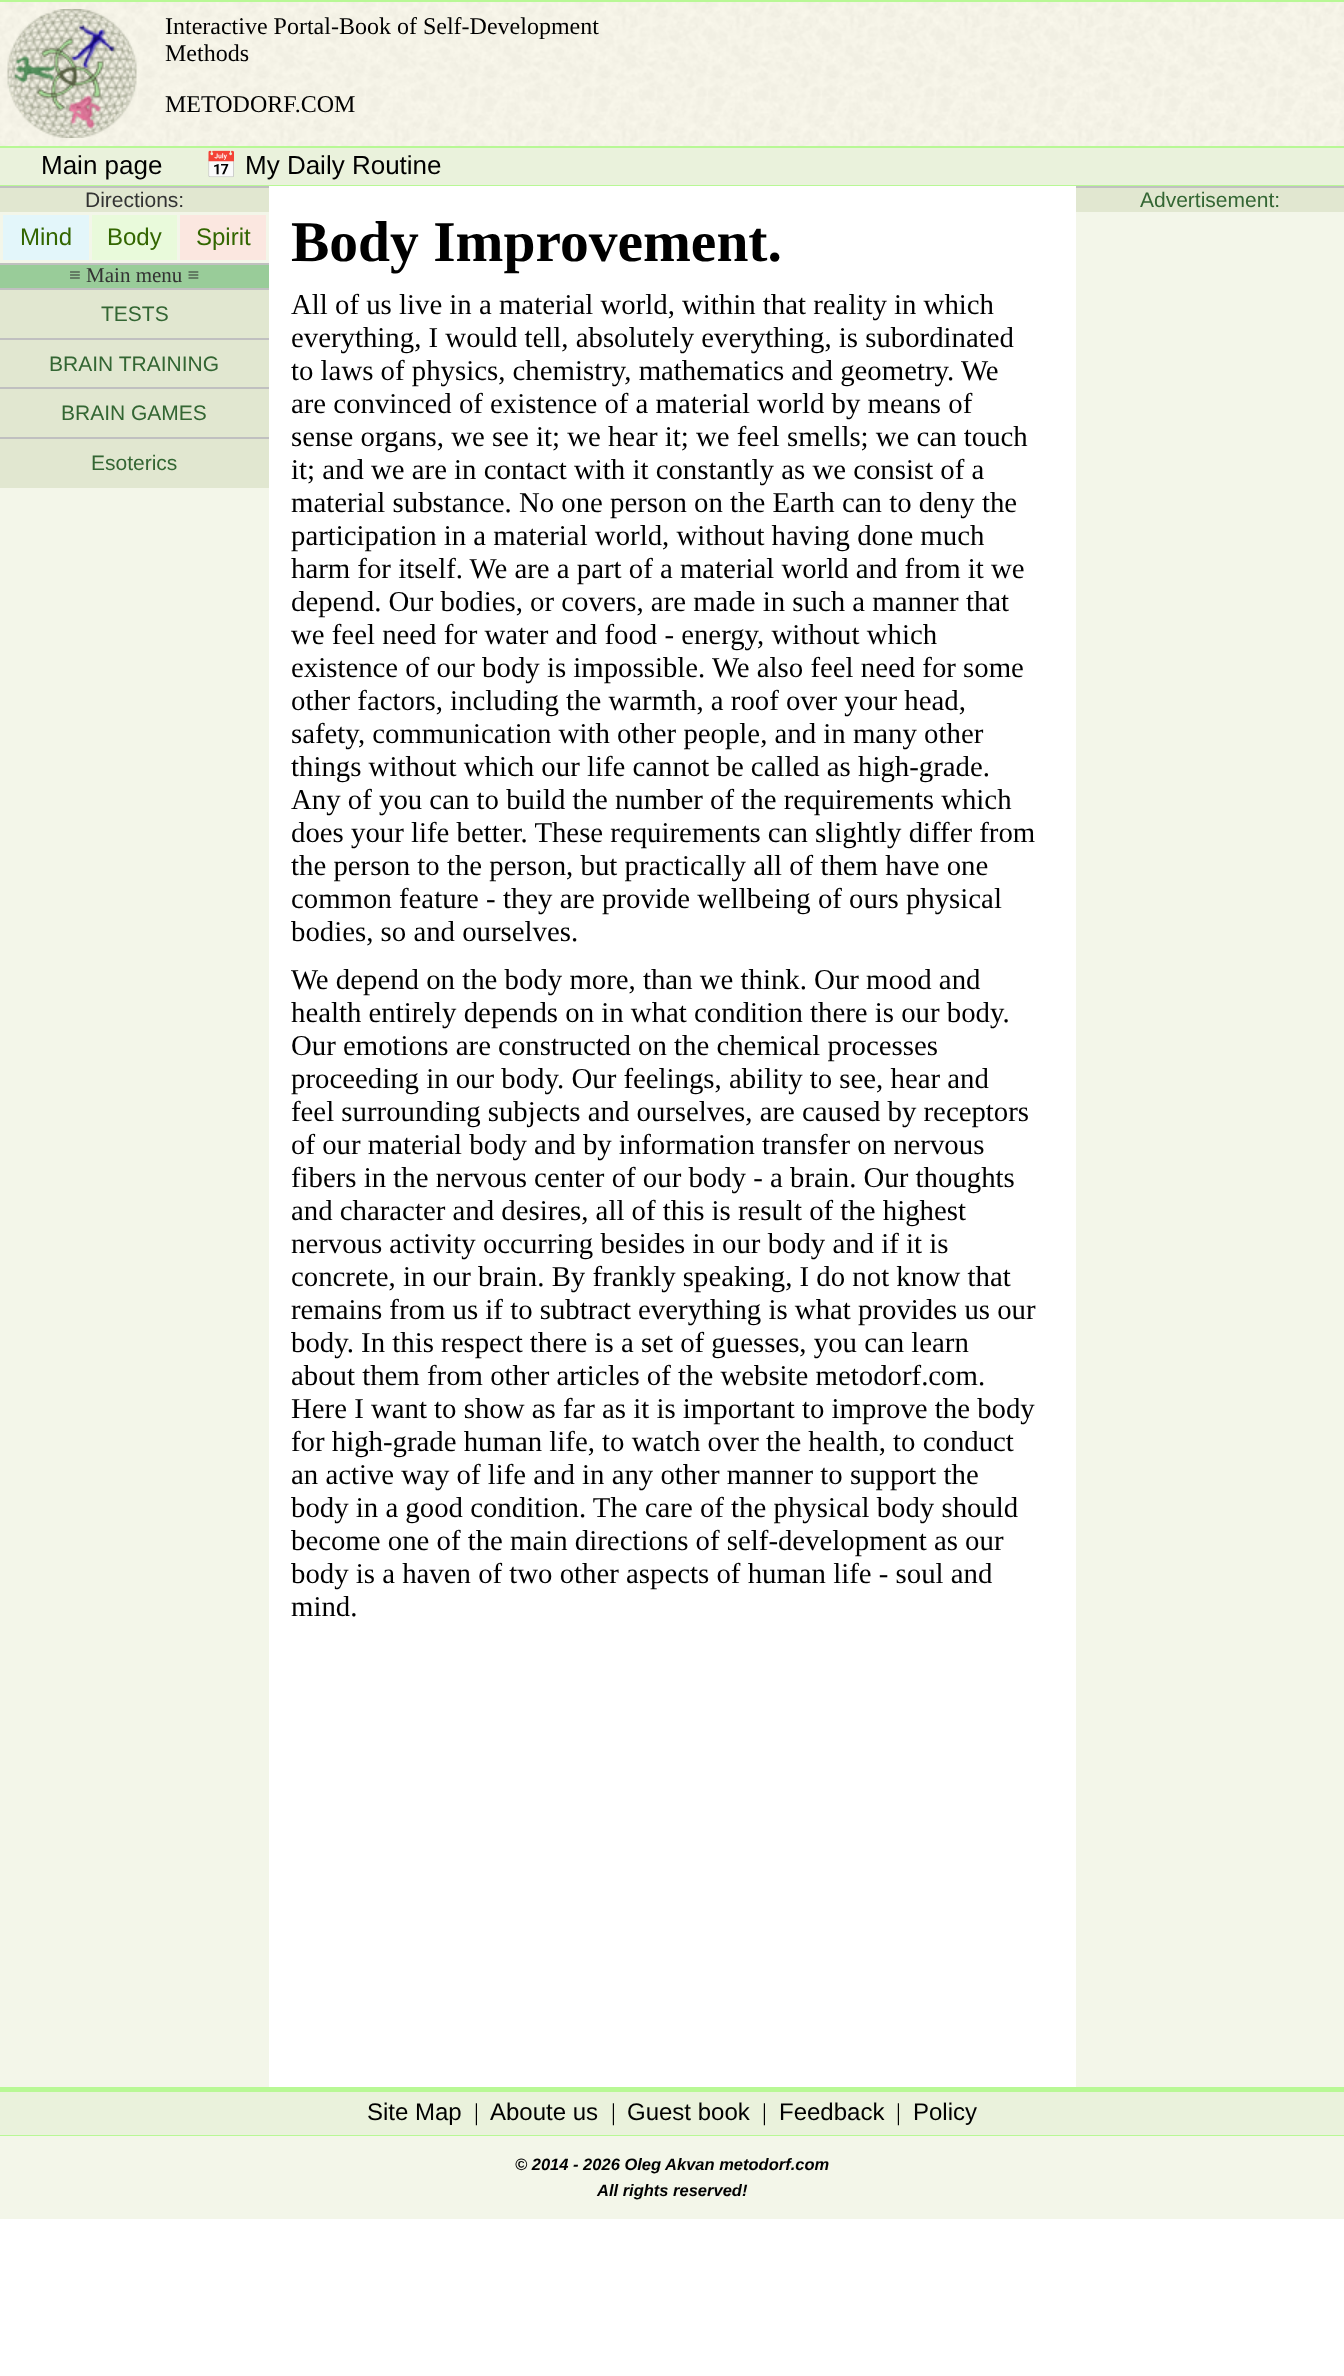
<!DOCTYPE html>
<meta charset="utf-8">
<style>body { margin: 0 } canvas { display: block }</style>
<canvas id="canvas" width="1344" height="2376"></canvas>
<img id="img1" src="images/1.png" hidden>
<img id="img2" src="images/2.png" hidden>
<script>
window.onload = function () {
    const canvas = document.getElementById('canvas');
    const context = canvas.getContext('2d');
    context.miterLimit = 4;
    context.fontKerning = 'normal';

    context.fillStyle = 'rgb(255, 255, 255)';
    context.fillRect(0, 0, 1344, 2376);
    context.drawImage(document.getElementById('img1'), 0, 2, 1344, 144);
    context.fillStyle = 'rgb(184, 248, 149)';
    context.fillRect(0, 0, 1344, 2);
    context.drawImage(document.getElementById('img2'), 7, 9, 130, 129);
    context.fillStyle = 'rgb(234, 242, 220)';
    context.fillRect(0, 148, 1344, 37);
    context.fillStyle = 'rgb(184, 248, 149)';
    context.fillRect(0, 146, 1344, 2);
    context.fillStyle = 'rgb(243, 246, 233)';
    context.fillRect(0, 212, 1344, 1875);
    context.fillStyle = 'rgb(184, 248, 149)';
    context.fillRect(0, 185, 1344, 1);
    context.fillStyle = 'rgb(225, 231, 208)';
    context.fillRect(0, 188, 269, 24);
    context.fillStyle = 'rgb(192, 192, 192)';
    context.fillRect(0, 186, 269, 2);
    context.fillStyle = 'rgb(227, 246, 250)';
    context.fillRect(3, 215, 86, 45);
    context.fillStyle = 'rgb(233, 250, 219)';
    context.fillRect(92, 215, 85, 45);
    context.fillStyle = 'rgb(251, 231, 224)';
    context.fillRect(180, 215, 86, 45);
    context.fillStyle = 'rgb(153, 204, 153)';
    context.fillRect(0, 265, 269, 23);
    context.fillStyle = 'rgb(192, 192, 192)';
    context.fillRect(0, 263, 269, 2);
    context.fillStyle = 'rgb(225, 231, 208)';
    context.fillRect(0, 290, 269, 48);
    context.fillStyle = 'rgb(192, 192, 192)';
    context.fillRect(0, 288, 269, 2);
    context.fillStyle = 'rgb(225, 231, 208)';
    context.fillRect(0, 340, 269, 47);
    context.fillStyle = 'rgb(192, 192, 192)';
    context.fillRect(0, 338, 269, 2);
    context.fillStyle = 'rgb(225, 231, 208)';
    context.fillRect(0, 389, 269, 48);
    context.fillStyle = 'rgb(192, 192, 192)';
    context.fillRect(0, 387, 269, 2);
    context.fillStyle = 'rgb(225, 231, 208)';
    context.fillRect(0, 439, 269, 49);
    context.fillStyle = 'rgb(192, 192, 192)';
    context.fillRect(0, 437, 269, 2);
    context.fillStyle = 'rgb(225, 231, 208)';
    context.fillRect(1076, 188, 268, 24);
    context.fillStyle = 'rgb(192, 192, 192)';
    context.fillRect(1076, 186, 268, 2);
    context.fillStyle = 'rgb(255, 255, 255)';
    context.fillRect(269, 212, 807, 1875);
    context.fillStyle = 'rgb(184, 248, 149)';
    context.fillRect(0, 2087, 1344, 3);
    context.fillStyle = 'rgb(234, 242, 220)';
    context.fillRect(0, 2092, 1344, 43);
    context.fillStyle = 'rgb(184, 248, 149)';
    context.fillRect(0, 2090, 1344, 2);
    context.fillRect(0, 2135, 1344, 1);
    context.fillStyle = 'rgb(243, 246, 233)';
    context.fillRect(0, 2136, 1344, 83);
    context.font = '24px Liberation Serif';
    context.fillStyle = 'rgb(0, 0, 0)';
    context.fillText('Interactive Portal-Book of Self-Development', 165, 34);
    context.fillText('Methods', 165, 61);
    context.fillText('METODORF.COM', 165, 112);
    context.font = '26px Liberation Sans';
    context.fillText('Main page', 41, 174);
    context.font = '26px Noto Color Emoji';
    context.fillText('📅', 205, 174);
    context.font = '26px Liberation Sans';
    context.fillText('My Daily Routine', 245, 174);
    context.font = '21px Liberation Sans';
    context.fillStyle = 'rgb(51, 51, 51)';
    context.fillText('Directions:', 85, 207);
    context.font = '24px Liberation Sans';
    context.fillStyle = 'rgb(51, 102, 0)';
    context.fillText('Mind', 20, 245);
    context.fillText('Body', 107, 245);
    context.fillText('Spirit', 196, 245);
    context.font = '21px Liberation Serif';
    context.fillStyle = 'rgb(51, 51, 51)';
    context.fillText('≡ Main menu ≡', 69, 282);
    context.font = '21px Liberation Sans';
    context.fillStyle = 'rgb(51, 102, 51)';
    context.fillText('TESTS', 101, 321);
    context.fillText('BRAIN TRAINING', 49, 371);
    context.fillText('BRAIN GAMES', 61, 420);
    context.fillText('Esoterics', 91, 470);
    context.fillText('Advertisement:', 1140, 207);
    context.font = 'bold 57.5px Liberation Serif';
    context.fillStyle = 'rgb(0, 0, 0)';
    context.fillText('Body Improvement.', 291, 261);
    context.font = '28.8px Liberation Serif';
    context.fillText('All of us live in a material world, within that reality in which', 291, 314);
    context.fillText('everything, I would tell, absolutely everything, is subordinated', 291, 347);
    context.fillText('to laws of physics, chemistry, mathematics and geometry. We', 291, 380);
    context.fillText('are convinced of existence of a material world by means of', 291, 413);
    context.fillText('sense organs, we see it; we hear it; we feel smells; we can touch', 291, 446);
    context.fillText('it; and we are in contact with it constantly as we consist of a', 291, 479);
    context.fillText('material substance. No one person on the Earth can to deny the', 291, 512);
    context.fillText('participation in a material world, without having done much', 291, 545);
    context.fillText('harm for itself. We are a part of a material world and from it we', 291, 578);
    context.fillText('depend. Our bodies, or covers, are made in such a manner that', 291, 611);
    context.fillText('we feel need for water and food - energy, without which', 291, 644);
    context.fillText('existence of our body is impossible. We also feel need for some', 291, 677);
    context.fillText('other factors, including the warmth, a roof over your head,', 291, 710);
    context.fillText('safety, communication with other people, and in many other', 291, 743);
    context.fillText('things without which our life cannot be called as high-grade.', 291, 776);
    context.fillText('Any of you can to build the number of the requirements which', 291, 809);
    context.fillText('does your life better. These requirements can slightly differ from', 291, 842);
    context.fillText('the person to the person, but practically all of them have one', 291, 875);
    context.fillText('common feature - they are provide wellbeing of ours physical', 291, 908);
    context.fillText('bodies, so and ourselves.', 291, 941);
    context.fillText('We depend on the body more, than we think. Our mood and', 291, 989);
    context.fillText('health entirely depends on in what condition there is our body.', 291, 1022);
    context.fillText('Our emotions are constructed on the chemical processes', 291, 1055);
    context.fillText('proceeding in our body. Our feelings, ability to see, hear and', 291, 1088);
    context.fillText('feel surrounding subjects and ourselves, are caused by receptors', 291, 1121);
    context.fillText('of our material body and by information transfer on nervous', 291, 1154);
    context.fillText('fibers in the nervous center of our body - a brain. Our thoughts', 291, 1187);
    context.fillText('and character and desires, all of this is result of the highest', 291, 1220);
    context.fillText('nervous activity occurring besides in our body and if it is', 291, 1253);
    context.fillText('concrete, in our brain. By frankly speaking, I do not know that', 291, 1286);
    context.fillText('remains from us if to subtract everything is what provides us our', 291, 1319);
    context.fillText('body. In this respect there is a set of guesses, you can learn', 291, 1352);
    context.fillText('about them from other articles of the website metodorf.com.', 291, 1385);
    context.fillText('Here I want to show as far as it is important to improve the body', 291, 1418);
    context.fillText('for high-grade human life, to watch over the health, to conduct', 291, 1451);
    context.fillText('an active way of life and in any other manner to support the', 291, 1484);
    context.fillText('body in a good condition. The care of the physical body should', 291, 1517);
    context.fillText('become one of the main directions of self-development as our', 291, 1550);
    context.fillText('body is a haven of two other aspects of human life - soul and', 291, 1583);
    context.fillText('mind.', 291, 1616);
    context.font = '24px Liberation Sans';
    context.fillText('Site Map', 367, 2120);
    context.font = '24px Liberation Serif';
    context.fillText('|', 474, 2120);
    context.font = '24px Liberation Sans';
    context.fillText('Aboute us', 490, 2120);
    context.font = '24px Liberation Serif';
    context.fillText('|', 611, 2120);
    context.font = '24px Liberation Sans';
    context.fillText('Guest book', 627, 2120);
    context.font = '24px Liberation Serif';
    context.fillText('|', 762, 2120);
    context.font = '24px Liberation Sans';
    context.fillText('Feedback', 779, 2120);
    context.font = '24px Liberation Serif';
    context.fillText('|', 896, 2120);
    context.font = '24px Liberation Sans';
    context.fillText('Policy', 913, 2120);
    context.font = 'italic bold 16.5px Liberation Sans';
    context.fillText('© 2014 - 2026 Oleg Akvan metodorf.com', 515, 2170);
    context.fillText('All rights reserved!', 597, 2196);
};
</script>
